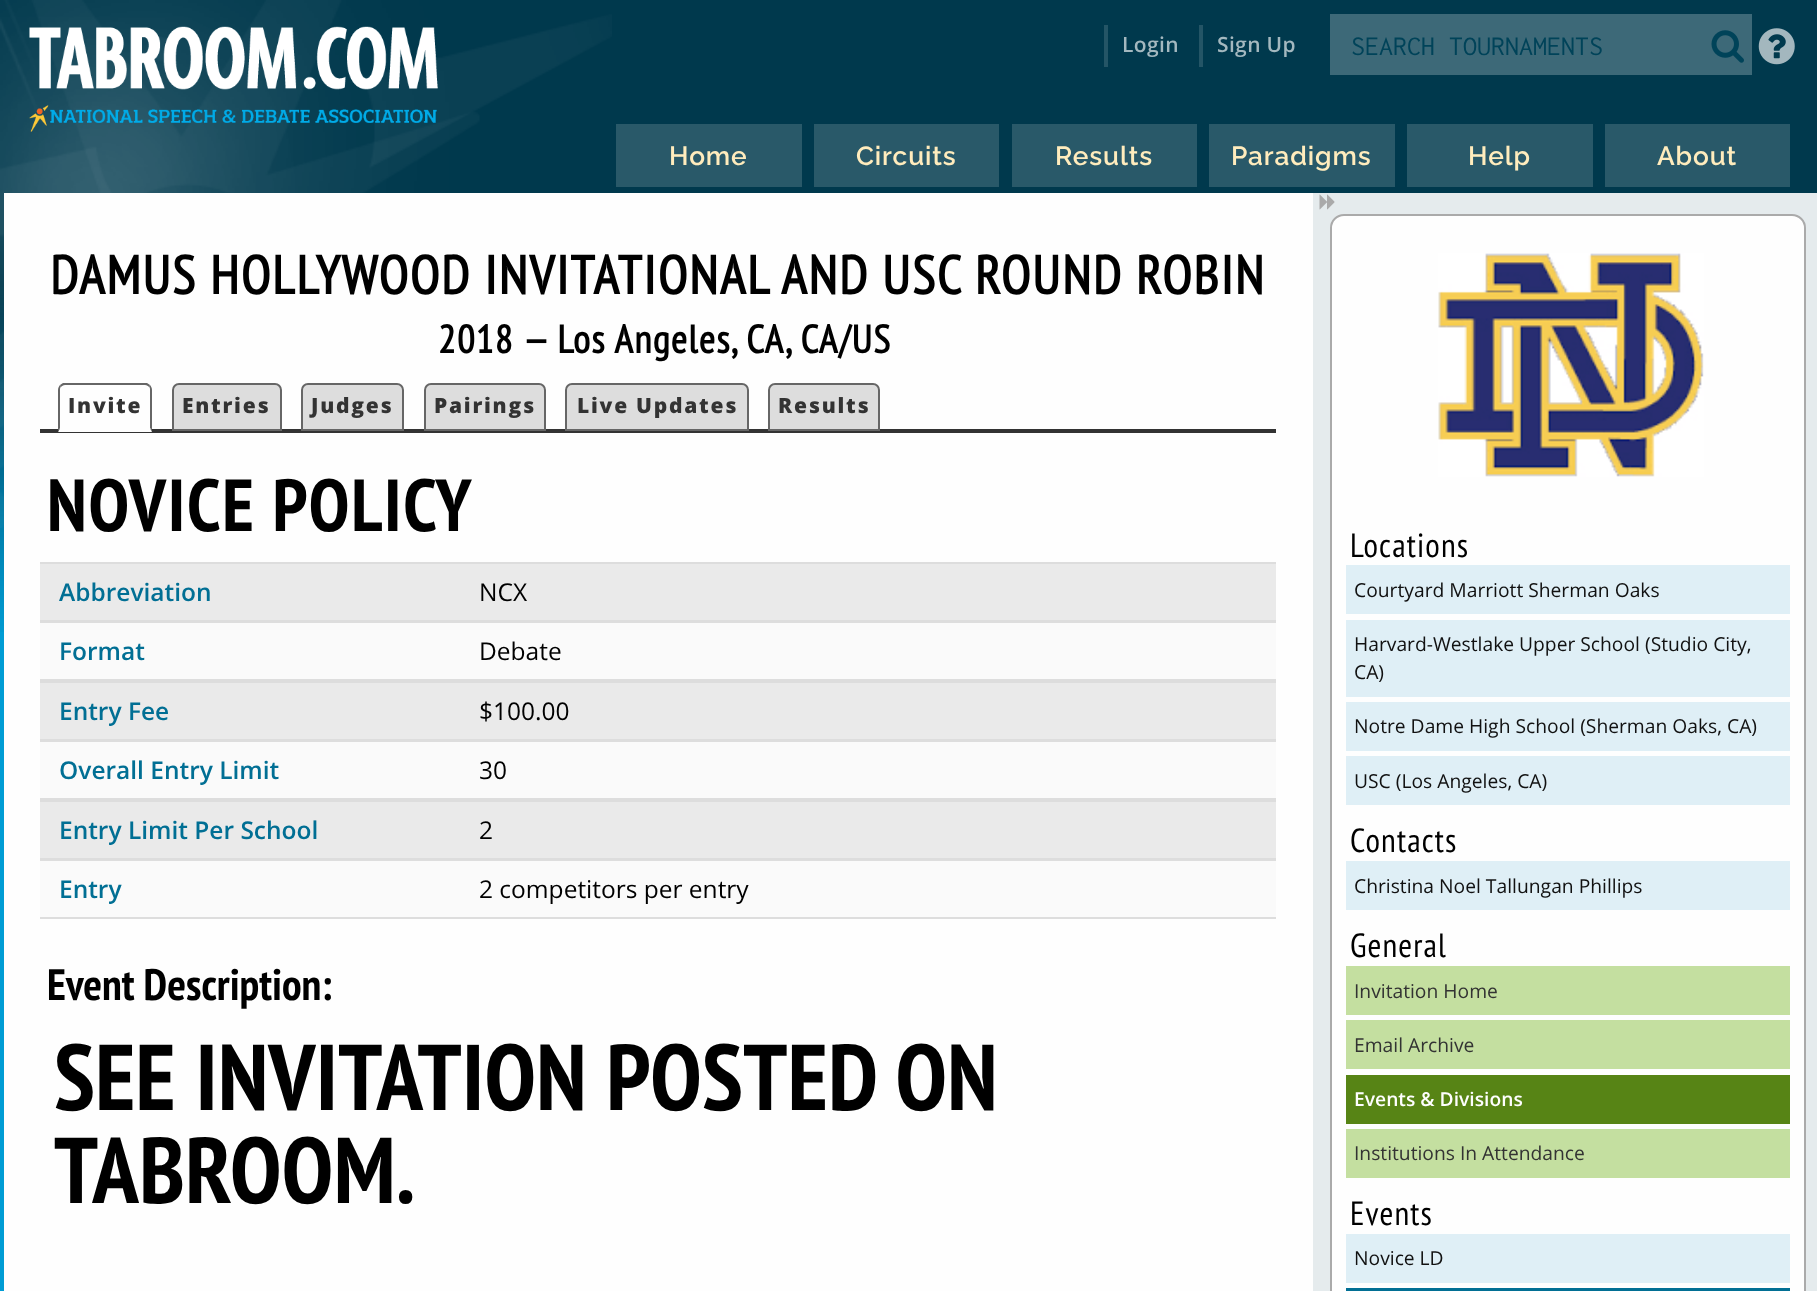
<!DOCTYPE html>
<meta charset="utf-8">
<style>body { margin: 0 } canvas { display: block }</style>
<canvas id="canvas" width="1817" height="1291"></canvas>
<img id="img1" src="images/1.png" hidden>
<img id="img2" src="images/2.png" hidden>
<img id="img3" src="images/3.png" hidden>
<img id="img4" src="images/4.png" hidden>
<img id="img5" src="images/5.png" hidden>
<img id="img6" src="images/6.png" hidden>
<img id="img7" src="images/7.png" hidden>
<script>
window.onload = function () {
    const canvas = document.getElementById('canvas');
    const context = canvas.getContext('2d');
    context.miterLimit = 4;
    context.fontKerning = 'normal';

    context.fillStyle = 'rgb(0, 156, 212)';
    context.fillRect(0, 0, 1817, 1291);
    context.drawImage(document.getElementById('img1'), 0, 0, 1817, 632);
    context.drawImage(document.getElementById('img2'), 0, 0, 612, 528);
    context.drawImage(document.getElementById('img3'), 29, 26, 409, 106);
    context.fillStyle = 'rgb(36, 85, 102)';
    context.fillRect(1104, 25, 4, 42);
    context.fillRect(1199, 25, 4, 42);
    context.fillStyle = 'rgb(61, 105, 120)';
    context.fillRect(1330, 14, 422, 61);
    context.drawImage(document.getElementById('img4'), 1711, 30, 33, 33);
    context.drawImage(document.getElementById('img5'), 1758, 28, 37, 37);
    context.fillStyle = 'rgb(41, 89, 105)';
    context.fillRect(616, 124, 186, 63);
    context.fillRect(814, 124, 185, 63);
    context.fillRect(1012, 124, 185, 63);
    context.fillRect(1209, 124, 186, 63);
    context.fillRect(1407, 124, 186, 63);
    context.fillRect(1605, 124, 185, 63);
    context.fillStyle = 'rgb(229, 235, 237)';
    context.fillRect(1313, 193, 504, 1098);
    context.fillStyle = 'rgb(254, 254, 254)';
    context.fillRect(4, 193, 1309, 1098);
    context.fillStyle = 'rgb(51, 51, 51)';
    context.fillRect(40, 429, 1236, 4);
    context.fillStyle = 'rgb(102, 102, 102)';
    context.beginPath();
    context.moveTo(65, 385);
    context.bezierCurveTo(63, 385, 62, 386, 61, 387);
    context.lineTo(60, 385);
    context.lineTo(63, 383);
    context.lineTo(147, 383);
    context.lineTo(150, 385);
    context.lineTo(149, 387);
    context.bezierCurveTo(148, 386, 147, 385, 145, 385);
    context.closePath();
    context.fill();
    context.beginPath();
    context.moveTo(150, 385);
    context.bezierCurveTo(151, 386, 152, 388, 152, 390);
    context.lineTo(152, 432);
    context.lineTo(150, 428);
    context.lineTo(150, 390);
    context.bezierCurveTo(150, 389, 150, 387, 149, 387);
    context.closePath();
    context.fill();
    context.fillStyle = 'rgb(254, 254, 254)';
    context.beginPath();
    context.moveTo(152, 432);
    context.lineTo(58, 432);
    context.lineTo(60, 428);
    context.lineTo(60, 429);
    context.lineTo(150, 429);
    context.lineTo(150, 428);
    context.closePath();
    context.fill();
    context.fillStyle = 'rgb(102, 102, 102)';
    context.beginPath();
    context.moveTo(58, 432);
    context.lineTo(58, 390);
    context.bezierCurveTo(58, 388, 59, 386, 60, 385);
    context.lineTo(61, 387);
    context.bezierCurveTo(60, 387, 60, 389, 60, 390);
    context.lineTo(60, 428);
    context.closePath();
    context.fill();
    context.fillStyle = 'rgb(221, 221, 221)';
    context.beginPath();
    context.roundRect(173, 384, 108, 46, [6, 6, 0, 0]);
    context.fill();
    context.strokeStyle = 'rgb(102, 102, 102)';
    context.lineWidth = 2;
    context.stroke();
    context.beginPath();
    context.roundRect(302, 384, 101, 46, [6, 6, 0, 0]);
    context.fill();
    context.stroke();
    context.beginPath();
    context.roundRect(425, 384, 120, 46, [6, 6, 0, 0]);
    context.fill();
    context.stroke();
    context.beginPath();
    context.roundRect(566, 384, 182, 46, [6, 6, 0, 0]);
    context.fill();
    context.stroke();
    context.beginPath();
    context.roundRect(769, 384, 110, 46, [6, 6, 0, 0]);
    context.fill();
    context.stroke();
    context.fillStyle = 'rgb(234, 234, 234)';
    context.fillRect(40, 564, 1236, 56);
    context.fillStyle = 'rgb(221, 221, 221)';
    context.fillRect(40, 562, 1236, 2);
    context.fillRect(40, 620, 1236, 3);
    context.fillStyle = 'rgb(250, 250, 250)';
    context.fillRect(40, 623, 1236, 56);
    context.fillStyle = 'rgb(221, 221, 221)';
    context.fillRect(40, 679, 1236, 4);
    context.fillStyle = 'rgb(234, 234, 234)';
    context.fillRect(40, 683, 1236, 56);
    context.fillStyle = 'rgb(221, 221, 221)';
    context.fillRect(40, 739, 1236, 3);
    context.fillStyle = 'rgb(250, 250, 250)';
    context.fillRect(40, 742, 1236, 56);
    context.fillStyle = 'rgb(221, 221, 221)';
    context.fillRect(40, 798, 1236, 4);
    context.fillStyle = 'rgb(234, 234, 234)';
    context.fillRect(40, 802, 1236, 56);
    context.fillStyle = 'rgb(221, 221, 221)';
    context.fillRect(40, 858, 1236, 3);
    context.fillStyle = 'rgb(250, 250, 250)';
    context.fillRect(40, 861, 1236, 56);
    context.fillStyle = 'rgb(221, 221, 221)';
    context.fillRect(40, 917, 1236, 2);
    context.drawImage(document.getElementById('img6'), 1319, 194, 16, 16);
    context.fillStyle = 'rgb(254, 254, 254)';
    context.beginPath();
    context.roundRect(1331, 215, 474, 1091, 13);
    context.fill();
    context.strokeStyle = 'rgb(170, 170, 170)';
    context.stroke();
    context.drawImage(document.getElementById('img7'), 1438, 253, 266, 224);
    context.fillStyle = 'rgb(223, 239, 246)';
    context.fillRect(1346, 565, 444, 49);
    context.fillRect(1346, 620, 444, 77);
    context.fillRect(1346, 702, 444, 49);
    context.fillRect(1346, 756, 444, 49);
    context.fillRect(1346, 861, 444, 49);
    context.fillStyle = 'rgb(196, 223, 160)';
    context.fillRect(1346, 966, 444, 49);
    context.fillRect(1346, 1020, 444, 49);
    context.fillStyle = 'rgb(87, 132, 21)';
    context.fillRect(1346, 1075, 444, 49);
    context.fillStyle = 'rgb(196, 223, 160)';
    context.fillRect(1346, 1129, 444, 49);
    context.fillStyle = 'rgb(223, 239, 246)';
    context.fillRect(1346, 1234, 444, 49);
    context.fillStyle = 'rgb(1, 111, 148)';
    context.fillRect(1346, 1288, 444, 3);
    context.letterSpacing = '0.35px';
    context.font = '600 21px Open Sans';
    context.fillStyle = 'rgb(163, 184, 191)';
    context.fillText('Login', 1122, 52);
    context.fillText('Sign Up', 1217, 52);
    context.letterSpacing = '0px';
    context.font = '28px Inconsolata';
    context.fillStyle = 'rgb(0, 67, 89)';
    context.fillText('SEARCH TOURNAMENTS', 1351, 55);
    context.letterSpacing = '0.9px';
    context.font = '600 26.25px Raleway';
    context.fillStyle = 'rgb(255, 236, 189)';
    context.fillText('Home', 669, 165);
    context.fillText('Circuits', 856, 165);
    context.fillText('Results', 1055, 165);
    context.fillText('Paradigms', 1231, 165);
    context.fillText('Help', 1468, 165);
    context.fillText('About', 1657, 165);
    context.letterSpacing = '1.75px';
    context.font = 'bold 53.9px PT Sans Narrow';
    context.fillStyle = 'rgb(0, 0, 0)';
    context.fillText('DAMUS HOLLYWOOD INVITATIONAL AND USC ROUND ROBIN', 50, 294);
    context.letterSpacing = '1.25px';
    context.font = 'bold 39.25px PT Sans Narrow';
    context.fillText('2018', 438, 353);
    context.fillText('— Los Angeles, CA, CA/US', 523, 353);
    context.letterSpacing = '1.75px';
    context.font = '800 21px Open Sans';
    context.fillStyle = 'rgb(51, 51, 51)';
    context.fillText('Invite', 68, 413);
    context.fillText('Entries', 182, 413);
    context.fillText('Judges', 311, 413);
    context.fillText('Pairings', 434, 413);
    context.fillText('Live Updates', 577, 413);
    context.fillText('Results', 778, 413);
    context.font = 'bold 73.5px "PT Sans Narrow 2"';
    context.fillStyle = 'rgb(0, 0, 0)';
    context.fillText('NOVICE POLICY', 47, 531);
    context.letterSpacing = '0px';
    context.font = '600 24.5px Open Sans';
    context.fillStyle = 'rgb(1, 111, 148)';
    context.fillText('Abbreviation', 59, 601);
    context.font = '24.5px Open Sans';
    context.fillStyle = 'rgb(0, 0, 0)';
    context.fillText('NCX', 479, 601);
    context.font = '600 24.5px Open Sans';
    context.fillStyle = 'rgb(1, 111, 148)';
    context.fillText('Format', 59, 660);
    context.font = '24.5px Open Sans';
    context.fillStyle = 'rgb(0, 0, 0)';
    context.fillText('Debate', 479, 660);
    context.font = '600 24.5px Open Sans';
    context.fillStyle = 'rgb(1, 111, 148)';
    context.fillText('Entry Fee', 59, 720);
    context.font = '24.5px Open Sans';
    context.fillStyle = 'rgb(0, 0, 0)';
    context.fillText('$100.00', 479, 720);
    context.font = '600 24.5px Open Sans';
    context.fillStyle = 'rgb(1, 111, 148)';
    context.fillText('Overall Entry Limit', 59, 779);
    context.font = '24.5px Open Sans';
    context.fillStyle = 'rgb(0, 0, 0)';
    context.fillText('30', 479, 779);
    context.font = '600 24.5px Open Sans';
    context.fillStyle = 'rgb(1, 111, 148)';
    context.fillText('Entry Limit Per School', 59, 839);
    context.font = '24.5px Open Sans';
    context.fillStyle = 'rgb(0, 0, 0)';
    context.fillText('2', 479, 839);
    context.font = '600 24.5px Open Sans';
    context.fillStyle = 'rgb(1, 111, 148)';
    context.fillText('Entry', 59, 898);
    context.font = '24.5px Open Sans';
    context.fillStyle = 'rgb(0, 0, 0)';
    context.fillText('2 competitors per entry', 479, 898);
    context.font = 'bold 44px "PT Sans Narrow 2"';
    context.fillText('Event Description:', 47, 1000);
    context.letterSpacing = '0.35px';
    context.font = 'bold 93.1px "PT Sans Narrow 2"';
    context.fillText('SEE INVITATION POSTED ON', 54, 1110);
    context.fillText('TABROOM.', 54, 1203);
    context.letterSpacing = '1.1px';
    context.font = '33.5px PT Sans Narrow';
    context.fillText('Locations', 1350, 557);
    context.letterSpacing = '0px';
    context.font = '19.25px Open Sans';
    context.fillStyle = 'rgb(17, 17, 17)';
    context.fillText('Courtyard Marriott Sherman Oaks', 1354, 597);
    context.fillText('Harvard-Westlake Upper School (Studio City,', 1354, 651);
    context.fillText('CA)', 1354, 679);
    context.fillText('Notre Dame High School (Sherman Oaks, CA)', 1354, 733);
    context.fillText('USC (Los Angeles, CA)', 1354, 788);
    context.letterSpacing = '1.1px';
    context.font = '33.5px PT Sans Narrow';
    context.fillStyle = 'rgb(0, 0, 0)';
    context.fillText('Contacts', 1350, 852);
    context.letterSpacing = '0px';
    context.font = '19.25px Open Sans';
    context.fillStyle = 'rgb(17, 17, 17)';
    context.fillText('Christina Noel Tallungan Phillips', 1354, 893);
    context.letterSpacing = '1.1px';
    context.font = '33.5px PT Sans Narrow';
    context.fillStyle = 'rgb(0, 0, 0)';
    context.fillText('General', 1350, 957);
    context.letterSpacing = '0px';
    context.font = '19.25px Open Sans';
    context.fillStyle = 'rgb(51, 51, 51)';
    context.fillText('Invitation Home', 1354, 998);
    context.fillText('Email Archive', 1354, 1052);
    context.font = '600 19.25px Open Sans';
    context.fillStyle = 'rgb(254, 254, 254)';
    context.fillText('Events & Divisions', 1354, 1106);
    context.font = '19.25px Open Sans';
    context.fillStyle = 'rgb(51, 51, 51)';
    context.fillText('Institutions In Attendance', 1354, 1160);
    context.letterSpacing = '1.1px';
    context.font = '33.5px PT Sans Narrow';
    context.fillStyle = 'rgb(0, 0, 0)';
    context.fillText('Events', 1350, 1225);
    context.letterSpacing = '0px';
    context.font = '19.25px Open Sans';
    context.fillStyle = 'rgb(17, 17, 17)';
    context.fillText('Novice LD', 1354, 1265);
};
</script>
